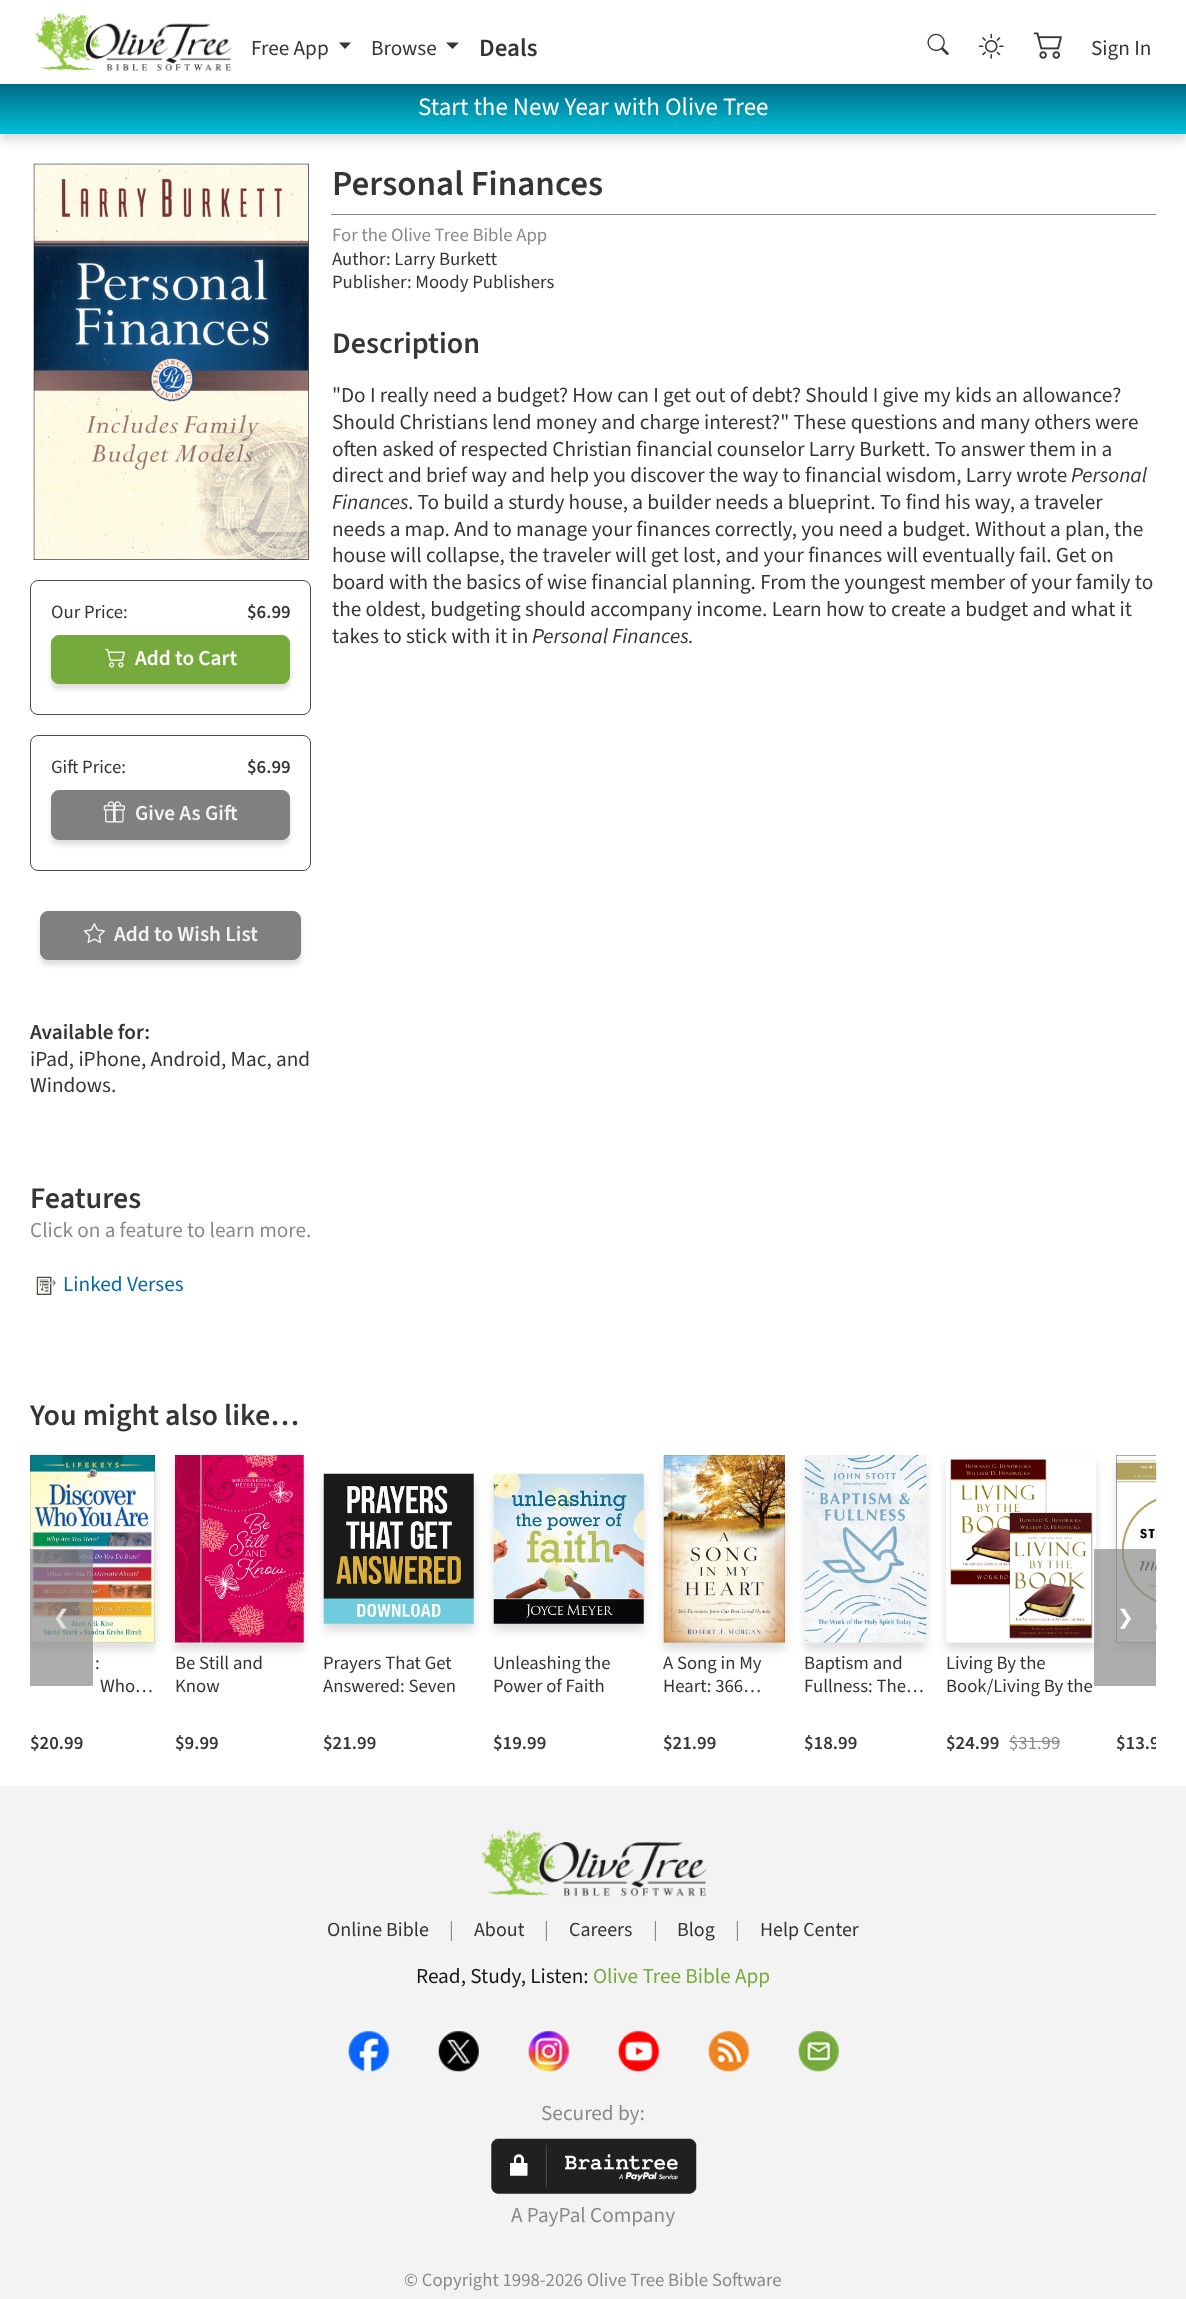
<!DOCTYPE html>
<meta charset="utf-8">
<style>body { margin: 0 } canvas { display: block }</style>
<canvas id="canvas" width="1186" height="2299"></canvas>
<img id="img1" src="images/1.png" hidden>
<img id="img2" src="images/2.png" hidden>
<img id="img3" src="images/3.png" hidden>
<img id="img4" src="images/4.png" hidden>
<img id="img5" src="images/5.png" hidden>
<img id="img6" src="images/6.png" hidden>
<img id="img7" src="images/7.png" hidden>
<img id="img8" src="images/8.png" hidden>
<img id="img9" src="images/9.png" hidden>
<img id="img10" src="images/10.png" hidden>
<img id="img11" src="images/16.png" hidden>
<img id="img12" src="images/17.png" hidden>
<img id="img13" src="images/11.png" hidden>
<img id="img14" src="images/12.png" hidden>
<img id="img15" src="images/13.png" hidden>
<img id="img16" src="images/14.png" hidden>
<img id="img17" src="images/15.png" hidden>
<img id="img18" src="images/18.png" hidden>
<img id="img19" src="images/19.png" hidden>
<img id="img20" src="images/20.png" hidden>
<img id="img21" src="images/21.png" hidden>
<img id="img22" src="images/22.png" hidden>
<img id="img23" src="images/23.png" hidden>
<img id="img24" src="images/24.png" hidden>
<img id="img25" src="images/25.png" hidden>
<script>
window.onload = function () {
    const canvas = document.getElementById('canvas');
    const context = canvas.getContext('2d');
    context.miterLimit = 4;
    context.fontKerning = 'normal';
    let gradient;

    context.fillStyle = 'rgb(255, 255, 255)';
    context.fillRect(0, 0, 1186, 2299);
    context.drawImage(document.getElementById('img1'), 35, 12, 197, 59);
    context.fillStyle = 'rgb(53, 53, 53)';
    context.beginPath();
    context.moveTo(339, 42.5);
    context.lineTo(351, 42.5);
    context.lineTo(345, 49);
    context.closePath();
    context.fill();
    context.beginPath();
    context.moveTo(446, 42.5);
    context.lineTo(459, 42.5);
    context.lineTo(452.5, 49);
    context.closePath();
    context.fill();
    context.drawImage(document.getElementById('img2'), 927, 33, 22, 22);
    context.drawImage(document.getElementById('img3'), 978, 33, 26, 26);
    context.drawImage(document.getElementById('img4'), 1033, 32, 29, 27);
    context.fillStyle = 'rgba(0, 0, 0, 0.13)';
    context.filter = 'blur(4px)';
    context.beginPath();
    context.rect(0, 91, 1186, 50);
    context.fill();
    context.filter = 'none';
    gradient = context.createLinearGradient(593, 84, 593, 134);
    gradient.addColorStop(0, 'rgb(0, 107, 135)');
    gradient.addColorStop(1, 'rgb(0, 192, 216)');
    context.fillStyle = gradient;
    context.fillRect(0, 84, 1186, 50);
    context.fillStyle = 'rgb(138, 138, 138)';
    context.fillRect(331, 214, 825, 1);
    context.drawImage(document.getElementById('img5'), 33, 163, 276, 397);
    context.beginPath();
    context.roundRect(30.5, 580.5, 280, 134, 7.5);
    context.strokeStyle = 'rgb(75, 75, 75)';
    context.stroke();
    context.fillStyle = 'rgba(0, 0, 0, 0.13)';
    context.filter = 'blur(2.5px)';
    context.beginPath();
    context.roundRect(51, 640, 239, 49, 8);
    context.fill();
    context.filter = 'none';
    context.fillStyle = 'rgb(119, 170, 60)';
    context.beginPath();
    context.roundRect(51.5, 635.5, 238, 48, 7.5);
    context.fill();
    context.strokeStyle = 'rgb(119, 170, 60)';
    context.stroke();
    context.drawImage(document.getElementById('img6'), 105, 648, 20, 20);
    context.beginPath();
    context.roundRect(30.5, 735.5, 280, 135, 7.5);
    context.strokeStyle = 'rgb(75, 75, 75)';
    context.stroke();
    context.fillStyle = 'rgba(0, 0, 0, 0.13)';
    context.filter = 'blur(2.5px)';
    context.beginPath();
    context.roundRect(51, 795, 239, 50, 8);
    context.fill();
    context.filter = 'none';
    context.fillStyle = 'rgb(128, 128, 128)';
    context.beginPath();
    context.roundRect(51.5, 790.5, 238, 49, 7.5);
    context.fill();
    context.strokeStyle = 'rgb(128, 128, 128)';
    context.stroke();
    context.drawImage(document.getElementById('img7'), 103, 801, 22, 22);
    context.fillStyle = 'rgba(0, 0, 0, 0.13)';
    context.filter = 'blur(2.5px)';
    context.beginPath();
    context.roundRect(40, 916, 261, 49, 8);
    context.fill();
    context.filter = 'none';
    context.fillStyle = 'rgb(128, 128, 128)';
    context.beginPath();
    context.roundRect(40.5, 911.5, 260, 48, 7.5);
    context.fill();
    context.stroke();
    context.drawImage(document.getElementById('img8'), 83, 923, 22, 21);
    context.drawImage(document.getElementById('img9'), 36, 1276, 20, 19);
    context.save();
    context.beginPath();
    context.rect(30, 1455, 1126, 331);
    context.clip();
    context.fillStyle = 'rgba(0, 0, 0, 0.13)';
    context.filter = 'blur(4px)';
    context.beginPath();
    context.rect(30, 1463, 125, 187);
    context.fill();
    context.filter = 'none';
    context.restore();
    context.drawImage(document.getElementById('img10'), 30, 1455, 125, 188);
    context.fillStyle = 'rgba(138, 138, 138, 0.7)';
    context.fillRect(30, 1549, 63, 137);
    context.fillStyle = 'rgba(0, 0, 0, 0.13)';
    context.filter = 'blur(4px)';
    context.beginPath();
    context.rect(946, 1463, 150, 187);
    context.fill();
    context.filter = 'none';
    context.drawImage(document.getElementById('img11'), 946, 1458, 150, 185);
    context.save();
    context.beginPath();
    context.rect(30, 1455, 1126, 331);
    context.clip();
    context.filter = 'blur(4px)';
    context.beginPath();
    context.rect(1116, 1463, 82, 187);
    context.fill();
    context.filter = 'none';
    context.restore();
    context.drawImage(document.getElementById('img12'), 1116, 1455, 41, 188);
    context.fillStyle = 'rgba(138, 138, 138, 0.7)';
    context.fillRect(1094, 1549, 62, 137);
    context.fillStyle = 'rgba(0, 0, 0, 0.13)';
    context.filter = 'blur(4px)';
    context.beginPath();
    context.rect(175, 1463, 129, 187);
    context.fill();
    context.filter = 'none';
    context.drawImage(document.getElementById('img13'), 175, 1455, 129, 188);
    context.filter = 'blur(4px)';
    context.beginPath();
    context.rect(324, 1481, 150, 150);
    context.fill();
    context.filter = 'none';
    context.drawImage(document.getElementById('img14'), 323, 1473, 151, 151);
    context.filter = 'blur(4px)';
    context.beginPath();
    context.rect(494, 1481, 150, 150);
    context.fill();
    context.filter = 'none';
    context.drawImage(document.getElementById('img15'), 493, 1473, 151, 151);
    context.filter = 'blur(4px)';
    context.beginPath();
    context.rect(664, 1463, 121, 187);
    context.fill();
    context.filter = 'none';
    context.drawImage(document.getElementById('img16'), 663, 1455, 122, 188);
    context.filter = 'blur(4px)';
    context.beginPath();
    context.rect(805, 1463, 121, 187);
    context.fill();
    context.filter = 'none';
    context.drawImage(document.getElementById('img17'), 805, 1455, 122, 188);
    context.fillStyle = 'rgb(138, 138, 138)';
    context.fillRect(1009, 1741, 51, 1);
    context.fillStyle = 'rgb(243, 243, 243)';
    context.fillRect(0, 1786, 1186, 513);
    context.drawImage(document.getElementById('img18'), 481, 1828, 226, 69);
    context.drawImage(document.getElementById('img19'), 348, 2031, 41, 41);
    context.drawImage(document.getElementById('img20'), 438, 2031, 41, 41);
    context.drawImage(document.getElementById('img21'), 528, 2031, 41, 41);
    context.drawImage(document.getElementById('img22'), 618, 2031, 41, 41);
    context.drawImage(document.getElementById('img23'), 708, 2031, 41, 41);
    context.drawImage(document.getElementById('img24'), 798, 2031, 41, 41);
    context.drawImage(document.getElementById('img25'), 491, 2138, 206, 56);
    context.font = '21.25px "Source Sans 3"';
    context.fillStyle = 'rgb(53, 53, 53)';
    context.fillText('Free App', 251, 55);
    context.fillText('Browse', 371, 55);
    context.font = '600 25px "Source Sans 3"';
    context.fillText('Deals', 479, 56);
    context.font = '21.25px "Source Sans 3"';
    context.fillText('Sign In', 1091, 55);
    context.font = '25px "Source Sans 3"';
    context.fillStyle = 'rgb(255, 255, 255)';
    context.fillText('Start the New Year with Olive Tree', 418, 115);
    context.font = '600 35px "Source Sans 3"';
    context.fillStyle = 'rgb(53, 53, 53)';
    context.fillText('Personal Finances', 332, 195);
    context.font = '18.75px "Source Sans 3"';
    context.fillStyle = 'rgb(138, 138, 138)';
    context.fillText('For the Olive Tree Bible App', 332, 241);
    context.fillStyle = 'rgb(53, 53, 53)';
    context.fillText('Author: Larry Burkett', 332, 265);
    context.fillText('Publisher: Moody Publishers', 332, 288);
    context.font = '600 30px "Source Sans 3"';
    context.fillText('Description', 332, 353);
    context.font = '21.25px "Source Sans 3"';
    context.fillText('"Do I really need a budget? How can I get out of debt? Should I give my kids an allowance?', 332, 402);
    context.fillText('Should Christians lend money and charge interest?" These questions and many others were', 332, 429);
    context.fillText('often asked of respected Christian financial counselor Larry Burkett. To answer them in a', 332, 456);
    context.fillText('direct and brief way and help you discover the way to financial wisdom, Larry wrote', 332, 482);
    context.font = 'italic 21.25px "Source Sans 3"';
    context.fillText('Personal', 1071, 482);
    context.fillText('Finances', 332, 509);
    context.font = '21.25px "Source Sans 3"';
    context.fillText('. To build a sturdy house, a builder needs a blueprint. To find his way, a traveler', 408, 509);
    context.fillText('needs a map. And to manage your finances correctly, you need a budget. Without a plan, the', 332, 536);
    context.fillText('house will collapse, the traveler will get lost, and your finances will eventually fail. Get on', 332, 562);
    context.fillText('board with the basics of wise financial planning. From the youngest member of your family to', 332, 589);
    context.fillText('the oldest, budgeting should accompany income. Learn how to create a budget and what it', 332, 616);
    context.fillText('takes to stick with it in', 332, 643);
    context.font = 'italic 21.25px "Source Sans 3"';
    context.fillText('Personal Finances.', 532, 643);
    context.font = '18.75px "Source Sans 3"';
    context.fillText('Our Price:', 51, 618);
    context.font = '600 18.75px "Source Sans 3"';
    context.fillText('$6.99', 247, 618);
    context.font = '600 21.25px "Source Sans 3"';
    context.fillStyle = 'rgb(255, 255, 255)';
    context.fillText('Add to Cart', 135, 665);
    context.font = '18.75px "Source Sans 3"';
    context.fillStyle = 'rgb(53, 53, 53)';
    context.fillText('Gift Price:', 51, 773);
    context.font = '600 18.75px "Source Sans 3"';
    context.fillText('$6.99', 247, 773);
    context.font = '600 21.25px "Source Sans 3"';
    context.fillStyle = 'rgb(243, 243, 243)';
    context.fillText('Give As Gift', 135, 820);
    context.fillText('Add to Wish List', 114, 941);
    context.fillStyle = 'rgb(53, 53, 53)';
    context.fillText('Available for:', 30, 1039);
    context.font = '21.25px "Source Sans 3"';
    context.fillText('iPad, iPhone, Android, Mac, and', 30, 1066);
    context.fillText('Windows.', 30, 1092);
    context.font = '600 30px "Source Sans 3"';
    context.fillText('Features', 30, 1208);
    context.font = '21.25px "Source Sans 3"';
    context.fillStyle = 'rgb(138, 138, 138)';
    context.fillText('Click on a feature to learn more.', 30, 1237);
    context.fillStyle = 'rgb(7, 105, 163)';
    context.fillText('Linked Verses', 63, 1291);
    context.font = '600 30px "Source Sans 3"';
    context.fillStyle = 'rgb(53, 53, 53)';
    context.fillText('You might also like…', 30, 1425);
    context.font = '20px DejaVu Sans';
    context.fillStyle = 'rgb(227, 225, 224)';
    context.fillText('❮', 53, 1624);
    context.fillStyle = 'rgb(255, 255, 255)';
    context.fillText('❯', 1117, 1624);
    context.font = '18.75px "Source Sans 3"';
    context.fillStyle = 'rgb(53, 53, 53)';
    context.fillText(':', 95, 1669);
    context.fillText('Who…', 100, 1692);
    context.font = '600 18.75px "Source Sans 3"';
    context.fillText('$20.99', 30, 1749);
    context.font = '18.75px "Source Sans 3"';
    context.fillText('Be Still and', 175, 1669);
    context.fillText('Know', 175, 1692);
    context.font = '600 18.75px "Source Sans 3"';
    context.fillText('$9.99', 175, 1749);
    context.font = '18.75px "Source Sans 3"';
    context.fillText('Prayers That Get', 323, 1669);
    context.fillText('Answered: Seven', 323, 1692);
    context.font = '600 18.75px "Source Sans 3"';
    context.fillText('$21.99', 323, 1749);
    context.font = '18.75px "Source Sans 3"';
    context.fillText('Unleashing the', 493, 1669);
    context.fillText('Power of Faith', 493, 1692);
    context.font = '600 18.75px "Source Sans 3"';
    context.fillText('$19.99', 493, 1749);
    context.font = '18.75px "Source Sans 3"';
    context.fillText('A Song in My', 663, 1669);
    context.fillText('Heart: 366…', 663, 1692);
    context.font = '600 18.75px "Source Sans 3"';
    context.fillText('$21.99', 663, 1749);
    context.font = '18.75px "Source Sans 3"';
    context.fillText('Baptism and', 804, 1669);
    context.fillText('Fullness: The…', 804, 1692);
    context.font = '600 18.75px "Source Sans 3"';
    context.fillText('$18.99', 804, 1749);
    context.font = '18.75px "Source Sans 3"';
    context.fillText('Living By the', 946, 1669);
    context.fillText('Book/Living By the', 946, 1692);
    context.font = '600 18.75px "Source Sans 3"';
    context.fillText('$24.99', 946, 1749);
    context.font = '18.75px "Source Sans 3"';
    context.fillStyle = 'rgb(138, 138, 138)';
    context.fillText('$31.99', 1009, 1749);
    context.save();
    context.beginPath();
    context.rect(30, 1455, 1126, 331);
    context.clip();
    context.font = '600 18.75px "Source Sans 3"';
    context.fillStyle = 'rgb(53, 53, 53)';
    context.fillText('$13.9', 1116, 1749);
    context.restore();
    context.font = '20px "Source Sans 3"';
    context.fillStyle = 'rgb(53, 53, 53)';
    context.fillText('Online Bible', 327, 1936);
    context.fillStyle = 'rgb(138, 138, 138)';
    context.fillText('|', 449, 1936);
    context.fillStyle = 'rgb(53, 53, 53)';
    context.fillText('About', 474, 1936);
    context.fillStyle = 'rgb(138, 138, 138)';
    context.fillText('|', 544, 1936);
    context.fillStyle = 'rgb(53, 53, 53)';
    context.fillText('Careers', 569, 1936);
    context.fillStyle = 'rgb(138, 138, 138)';
    context.fillText('|', 653, 1936);
    context.fillStyle = 'rgb(53, 53, 53)';
    context.fillText('Blog', 677, 1936);
    context.fillStyle = 'rgb(138, 138, 138)';
    context.fillText('|', 735, 1936);
    context.fillStyle = 'rgb(53, 53, 53)';
    context.fillText('Help Center', 760, 1936);
    context.font = '21.25px "Source Sans 3"';
    context.fillStyle = 'rgb(26, 23, 24)';
    context.fillText('Read, Study, Listen:', 416, 1983);
    context.fillStyle = 'rgb(119, 170, 60)';
    context.fillText('Olive Tree Bible App', 593, 1983);
    context.fillStyle = 'rgb(138, 138, 138)';
    context.fillText('Secured by:', 541, 2120);
    context.fillText('A PayPal Company', 511, 2222);
    context.font = '18.75px "Source Sans 3"';
    context.fillText('© Copyright 1998-2026 Olive Tree Bible Software', 404, 2286);
};
</script>
